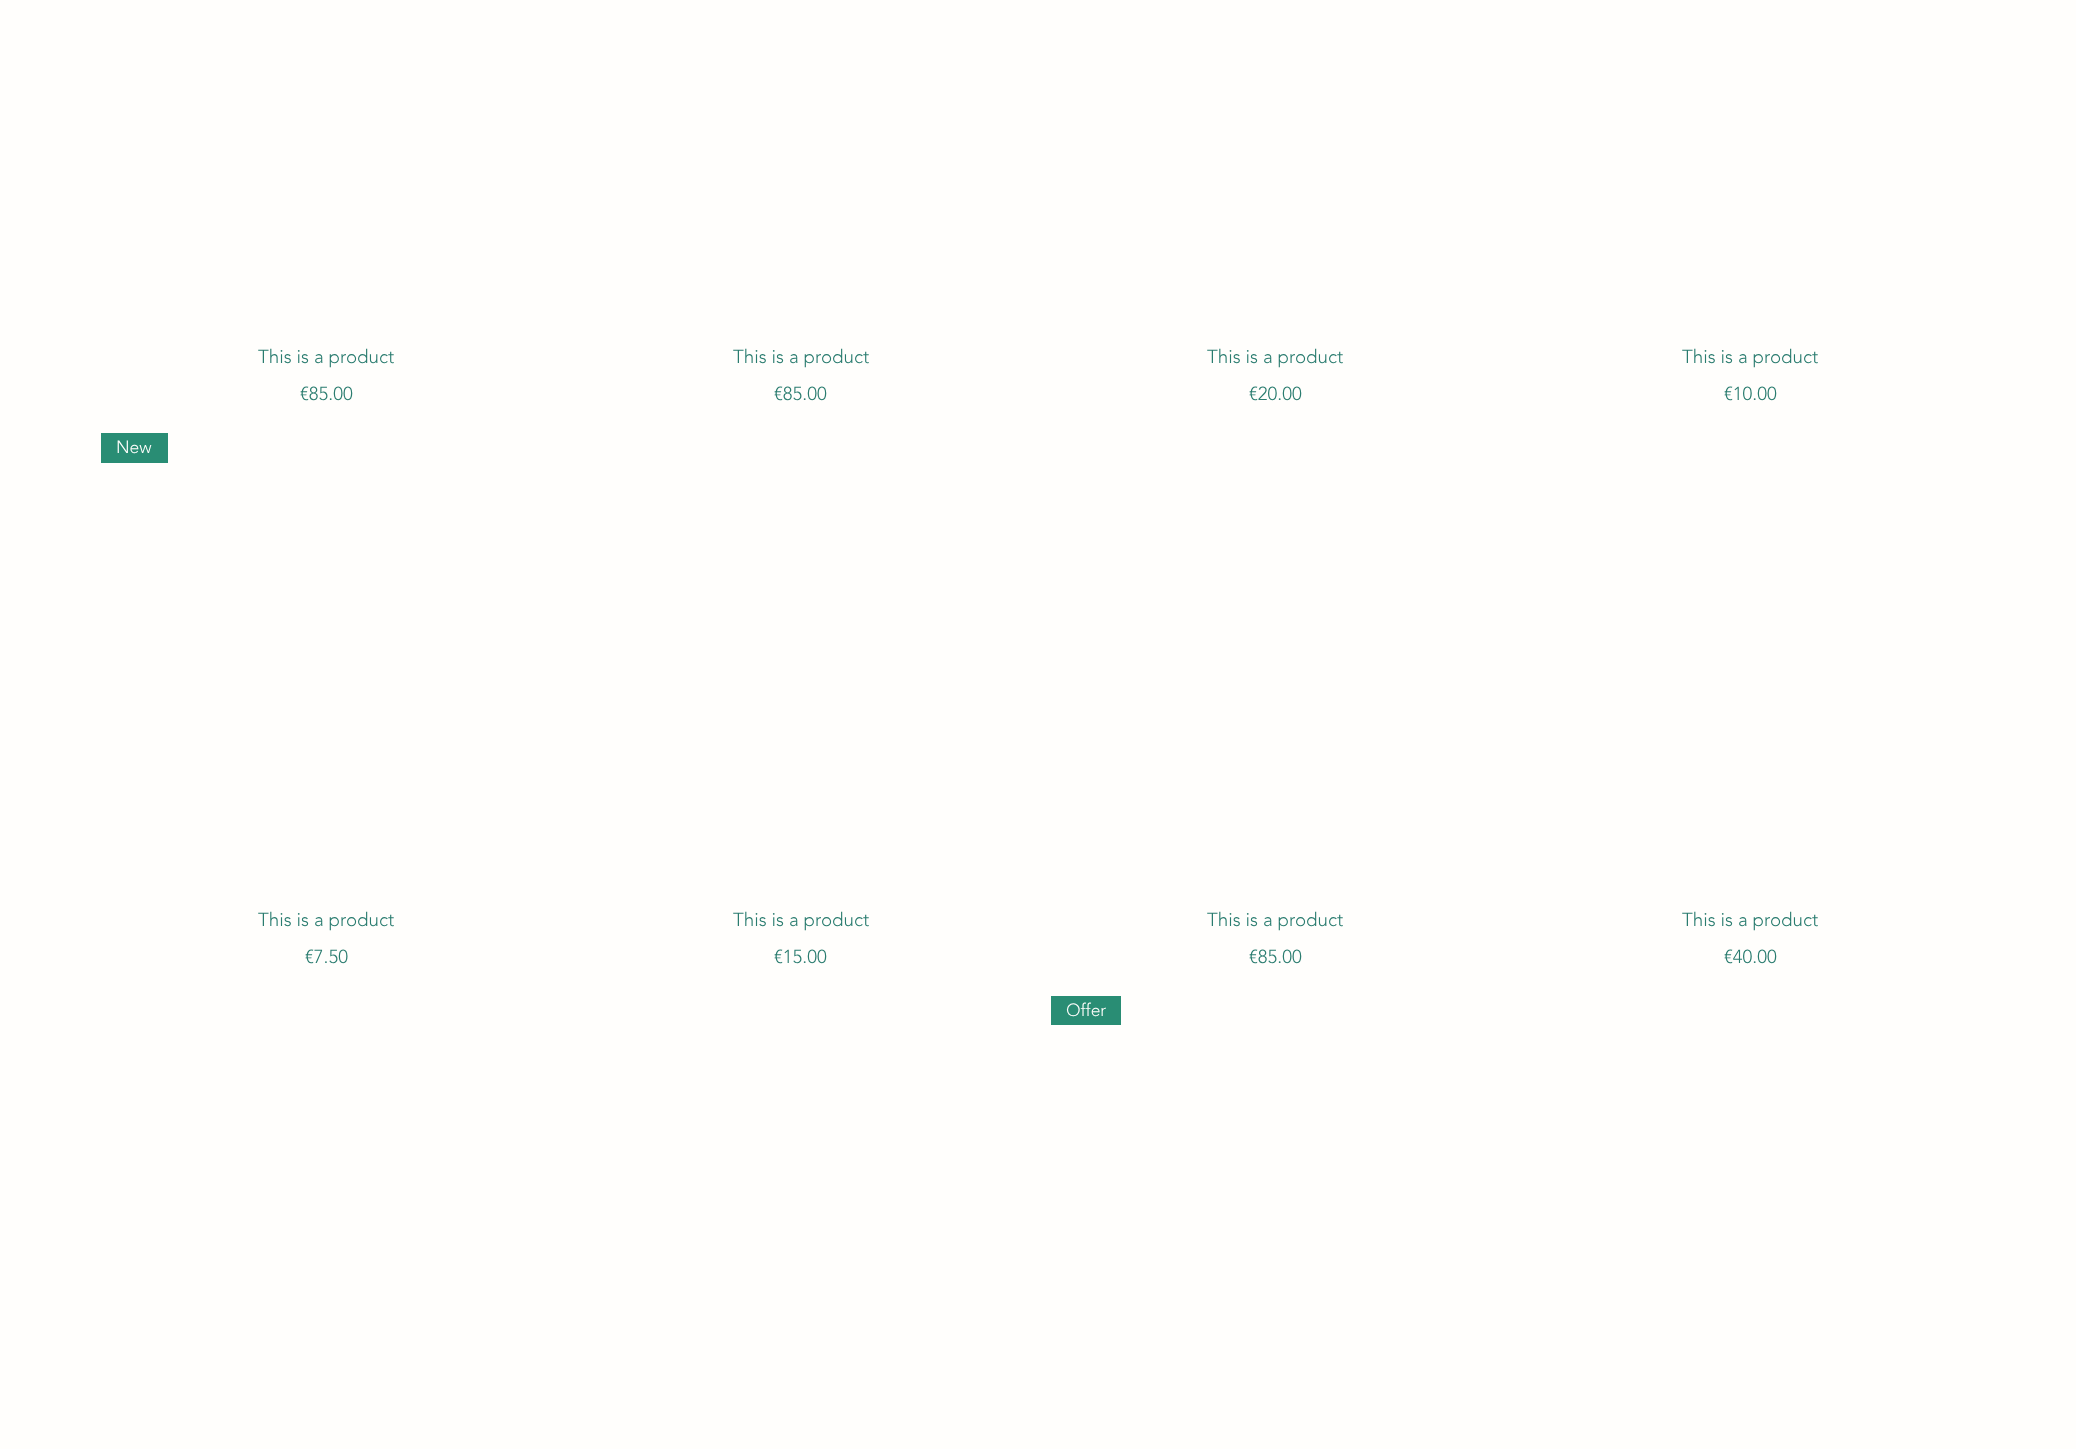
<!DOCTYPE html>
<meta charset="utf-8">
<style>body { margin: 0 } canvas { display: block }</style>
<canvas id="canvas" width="2076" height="1449"></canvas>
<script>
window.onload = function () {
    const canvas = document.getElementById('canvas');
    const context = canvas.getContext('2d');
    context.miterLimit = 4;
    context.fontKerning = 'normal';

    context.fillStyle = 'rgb(255, 254, 252)';
    context.fillRect(0, 0, 2076, 1449);
    context.fillStyle = 'rgb(41, 141, 116)';
    context.fillRect(101, 433, 67, 30);
    context.fillRect(1051, 996, 70, 29);
    context.font = '300 18.75px "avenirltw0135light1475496"';
    context.fillStyle = 'rgb(42, 124, 111)';
    context.fillText('This is a product', 258, 363);
    context.fillText('€85.00', 300, 400);
    context.fillText('This is a product', 733, 363);
    context.fillText('€85.00', 774, 400);
    context.fillText('This is a product', 1207, 363);
    context.fillText('€20.00', 1249, 400);
    context.fillText('This is a product', 1682, 363);
    context.fillText('€10.00', 1724, 400);
    context.font = '300 17.5px "avenirltw0135light1475496"';
    context.fillStyle = 'rgb(255, 254, 252)';
    context.fillText('New', 116, 453);
    context.font = '300 18.75px "avenirltw0135light1475496"';
    context.fillStyle = 'rgb(42, 124, 111)';
    context.fillText('This is a product', 258, 926);
    context.fillText('€7.50', 305, 963);
    context.fillText('This is a product', 733, 926);
    context.fillText('€15.00', 774, 963);
    context.fillText('This is a product', 1207, 926);
    context.fillText('€85.00', 1249, 963);
    context.fillText('This is a product', 1682, 926);
    context.fillText('€40.00', 1724, 963);
    context.font = '300 17.5px "avenirltw0135light1475496"';
    context.fillStyle = 'rgb(255, 254, 252)';
    context.fillText('Offer', 1066, 1016);
};
</script>
